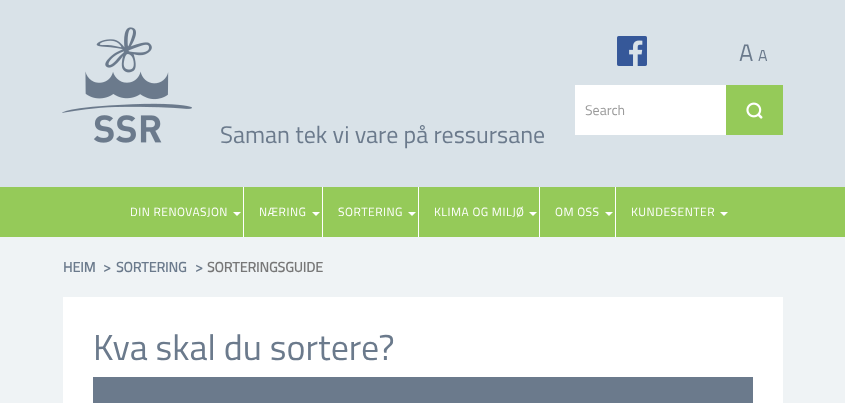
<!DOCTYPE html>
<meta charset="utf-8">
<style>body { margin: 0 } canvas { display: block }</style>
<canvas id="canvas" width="845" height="403"></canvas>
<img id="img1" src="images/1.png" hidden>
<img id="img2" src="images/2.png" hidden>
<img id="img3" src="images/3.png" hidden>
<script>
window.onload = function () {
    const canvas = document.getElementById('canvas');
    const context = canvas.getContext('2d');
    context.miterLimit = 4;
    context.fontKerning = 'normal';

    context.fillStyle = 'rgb(239, 243, 245)';
    context.fillRect(0, 0, 845, 403);
    context.fillStyle = 'rgb(217, 226, 232)';
    context.fillRect(0, 0, 845, 187);
    context.drawImage(document.getElementById('img1'), 617, 36, 30, 30);
    context.fillStyle = 'rgb(255, 255, 255)';
    context.fillRect(575, 85, 151, 50);
    context.fillStyle = 'rgb(149, 202, 89)';
    context.fillRect(726, 85, 57, 50);
    context.drawImage(document.getElementById('img2'), 746, 102, 17, 17);
    context.drawImage(document.getElementById('img3'), 62, 27, 130, 116);
    context.fillRect(0, 187, 845, 50);
    context.fillStyle = 'rgb(255, 255, 255)';
    context.beginPath();
    context.moveTo(233, 212);
    context.lineTo(241, 212);
    context.lineTo(237, 216);
    context.closePath();
    context.fill();
    context.fillRect(243, 187, 1, 50);
    context.beginPath();
    context.moveTo(312, 212);
    context.lineTo(320, 212);
    context.lineTo(316, 216);
    context.closePath();
    context.fill();
    context.fillRect(322, 187, 1, 50);
    context.beginPath();
    context.moveTo(408, 212);
    context.lineTo(416, 212);
    context.lineTo(412, 216);
    context.closePath();
    context.fill();
    context.fillRect(418, 187, 1, 50);
    context.beginPath();
    context.moveTo(529, 212);
    context.lineTo(537, 212);
    context.lineTo(533, 216);
    context.closePath();
    context.fill();
    context.fillRect(539, 187, 1, 50);
    context.beginPath();
    context.moveTo(605, 212);
    context.lineTo(613, 212);
    context.lineTo(609, 216);
    context.closePath();
    context.fill();
    context.fillRect(615, 187, 1, 50);
    context.beginPath();
    context.moveTo(720, 212);
    context.lineTo(728, 212);
    context.lineTo(724, 216);
    context.closePath();
    context.fill();
    context.fillRect(63, 297, 720, 106);
    context.fillStyle = 'rgb(107, 122, 140)';
    context.fillRect(93, 377, 660, 26);
    context.font = '24px Titillium Web';
    context.fillText('A', 739, 61);
    context.font = '16px Titillium Web';
    context.fillText('A', 758, 61);
    context.font = '14px Titillium Web';
    context.fillStyle = 'rgb(153, 153, 153)';
    context.fillText('Search', 585, 115);
    context.font = '24px Titillium Web';
    context.fillStyle = 'rgb(107, 122, 140)';
    context.fillText('Saman tek vi vare på ressursane', 220, 143);
    context.letterSpacing = '0.5px';
    context.font = '12px Titillium Web';
    context.fillStyle = 'rgb(255, 255, 255)';
    context.fillText('DIN RENOVASJON', 130, 216);
    context.fillText('NÆRING', 259, 216);
    context.fillText('SORTERING', 338, 216);
    context.fillText('KLIMA OG MILJØ', 434, 216);
    context.fillText('OM OSS', 555, 216);
    context.fillText('KUNDESENTER', 631, 216);
    context.letterSpacing = '0px';
    context.font = 'bold 14px Titillium Web';
    context.fillStyle = 'rgb(107, 122, 140)';
    context.fillText('HEIM', 63, 272);
    context.fillText('>', 103, 272);
    context.fillText('SORTERING', 116, 272);
    context.fillText('>', 195, 272);
    context.fillStyle = 'rgb(119, 119, 119)';
    context.fillText('SORTERINGSGUIDE', 207, 272);
    context.font = '36px Titillium Web';
    context.fillStyle = 'rgb(107, 122, 140)';
    context.fillText('Kva skal du sortere?', 93, 360);
};
</script>
